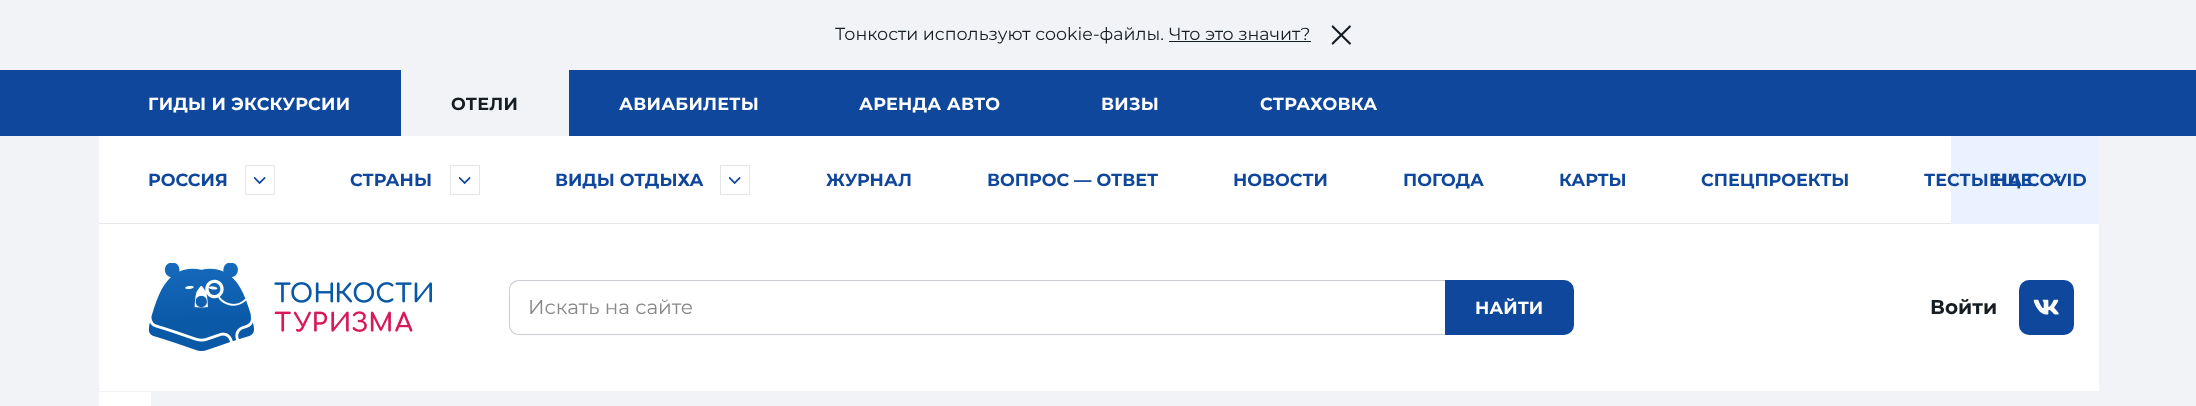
<!DOCTYPE html>
<meta charset="utf-8">
<style>body { margin: 0 } canvas { display: block }</style>
<canvas id="canvas" width="2196" height="406"></canvas>
<img id="img1" src="images/1.png" hidden>
<img id="img2" src="images/2.png" hidden>
<img id="img3" src="images/3.png" hidden>
<img id="img4" src="images/4.png" hidden>
<img id="img5" src="images/5.png" hidden>
<img id="img6" src="images/6.png" hidden>
<script>
window.onload = function () {
    const canvas = document.getElementById('canvas');
    const context = canvas.getContext('2d');
    context.miterLimit = 4;
    context.fontKerning = 'normal';

    context.fillStyle = 'rgb(242, 243, 247)';
    context.fillRect(0, 0, 2196, 406);
    context.fillStyle = 'rgb(22, 29, 35)';
    context.fillRect(1169, 41, 142, 1);
    context.drawImage(document.getElementById('img1'), 1331, 25, 20, 20);
    context.fillStyle = 'rgb(15, 71, 156)';
    context.fillRect(0, 70, 2196, 66);
    context.fillStyle = 'rgb(242, 243, 247)';
    context.fillRect(401, 70, 168, 66);
    context.fillStyle = 'rgb(255, 255, 255)';
    context.fillRect(99, 136, 2000, 255);
    context.fillStyle = 'rgb(229, 230, 233)';
    context.fillRect(99, 223, 1852, 1);
    context.strokeStyle = 'rgb(229, 230, 233)';
    context.strokeRect(245.5, 165.5, 29, 29);
    context.drawImage(document.getElementById('img2'), 254, 177, 12, 8);
    context.strokeRect(450.5, 165.5, 29, 29);
    context.drawImage(document.getElementById('img3'), 459, 177, 12, 8);
    context.strokeRect(720.5, 165.5, 29, 29);
    context.drawImage(document.getElementById('img3'), 729, 177, 12, 8);
    context.fillStyle = 'rgb(235, 242, 255)';
    context.fillRect(1951, 136, 148, 88);
    context.drawImage(document.getElementById('img4'), 2049, 175, 12, 8);
    context.drawImage(document.getElementById('img5'), 149, 263, 283, 88);
    context.fillStyle = 'rgb(202, 206, 210)';
    context.beginPath();
    context.moveTo(519, 280);
    context.lineTo(1445, 280);
    context.lineTo(1445, 335);
    context.lineTo(519, 335);
    context.bezierCurveTo(513, 335, 509, 331, 509, 325);
    context.lineTo(509, 290);
    context.bezierCurveTo(509, 284, 513, 280, 519, 280);
    context.closePath();
    context.moveTo(519, 281);
    context.lineTo(1445, 281);
    context.lineTo(1445, 334);
    context.lineTo(519, 334);
    context.bezierCurveTo(514, 334, 510, 330, 510, 325);
    context.lineTo(510, 290);
    context.bezierCurveTo(510, 285, 514, 281, 519, 281);
    context.closePath();
    context.fill('evenodd');
    context.fillStyle = 'rgb(15, 71, 156)';
    context.beginPath();
    context.roundRect(1445, 280, 129, 55, [0, 10, 10, 0]);
    context.fill();
    context.beginPath();
    context.roundRect(2019, 280, 55, 55, 10);
    context.fill();
    context.drawImage(document.getElementById('img6'), 2033, 299, 26, 16);
    context.fillStyle = 'rgb(255, 255, 255)';
    context.fillRect(99, 392, 52, 14);
    context.font = '17.5px Montserrat';
    context.fillStyle = 'rgb(22, 29, 35)';
    context.fillText('Тонкости используют сookie-файлы. Что это значит?', 835, 40);
    context.letterSpacing = '0.25px';
    context.font = 'bold 17.5px Montserrat';
    context.fillStyle = 'rgb(255, 255, 255)';
    context.fillText('ГИДЫ И ЭКСКУРСИИ', 148, 110);
    context.fillStyle = 'rgb(22, 29, 35)';
    context.fillText('ОТЕЛИ', 451, 110);
    context.fillStyle = 'rgb(255, 255, 255)';
    context.fillText('АВИАБИЛЕТЫ', 619, 110);
    context.fillText('АРЕНДА АВТО', 859, 110);
    context.fillText('ВИЗЫ', 1101, 110);
    context.fillText('СТРАХОВКА', 1260, 110);
    context.letterSpacing = '0px';
    context.fillStyle = 'rgb(15, 71, 156)';
    context.fillText('РОССИЯ', 148, 186);
    context.fillText('СТРАНЫ', 350, 186);
    context.fillText('ВИДЫ ОТДЫХА', 555, 186);
    context.fillText('ЖУРНАЛ', 826, 186);
    context.fillText('ВОПРОС — ОТВЕТ', 987, 186);
    context.fillText('НОВОСТИ', 1233, 186);
    context.fillText('ПОГОДА', 1403, 186);
    context.fillText('КАРТЫ', 1559, 186);
    context.fillText('СПЕЦПРОЕКТЫ', 1701, 186);
    context.fillText('ЕЩЕ', 1989, 186);
    context.save();
    context.beginPath();
    context.rect(111, 136, 1975, 88);
    context.clip();
    context.fillText('ТЕСТЫ НА COVID', 1924, 186);
    context.restore();
    context.font = '20px Montserrat';
    context.fillStyle = 'rgb(136, 136, 136)';
    context.fillText('Искать на сайте', 528, 314);
    context.font = 'bold 17.5px Montserrat';
    context.fillStyle = 'rgb(255, 255, 255)';
    context.fillText('НАЙТИ', 1475, 314);
    context.font = 'bold 20px Montserrat';
    context.fillStyle = 'rgb(22, 29, 35)';
    context.fillText('Войти', 1930, 314);
};
</script>
